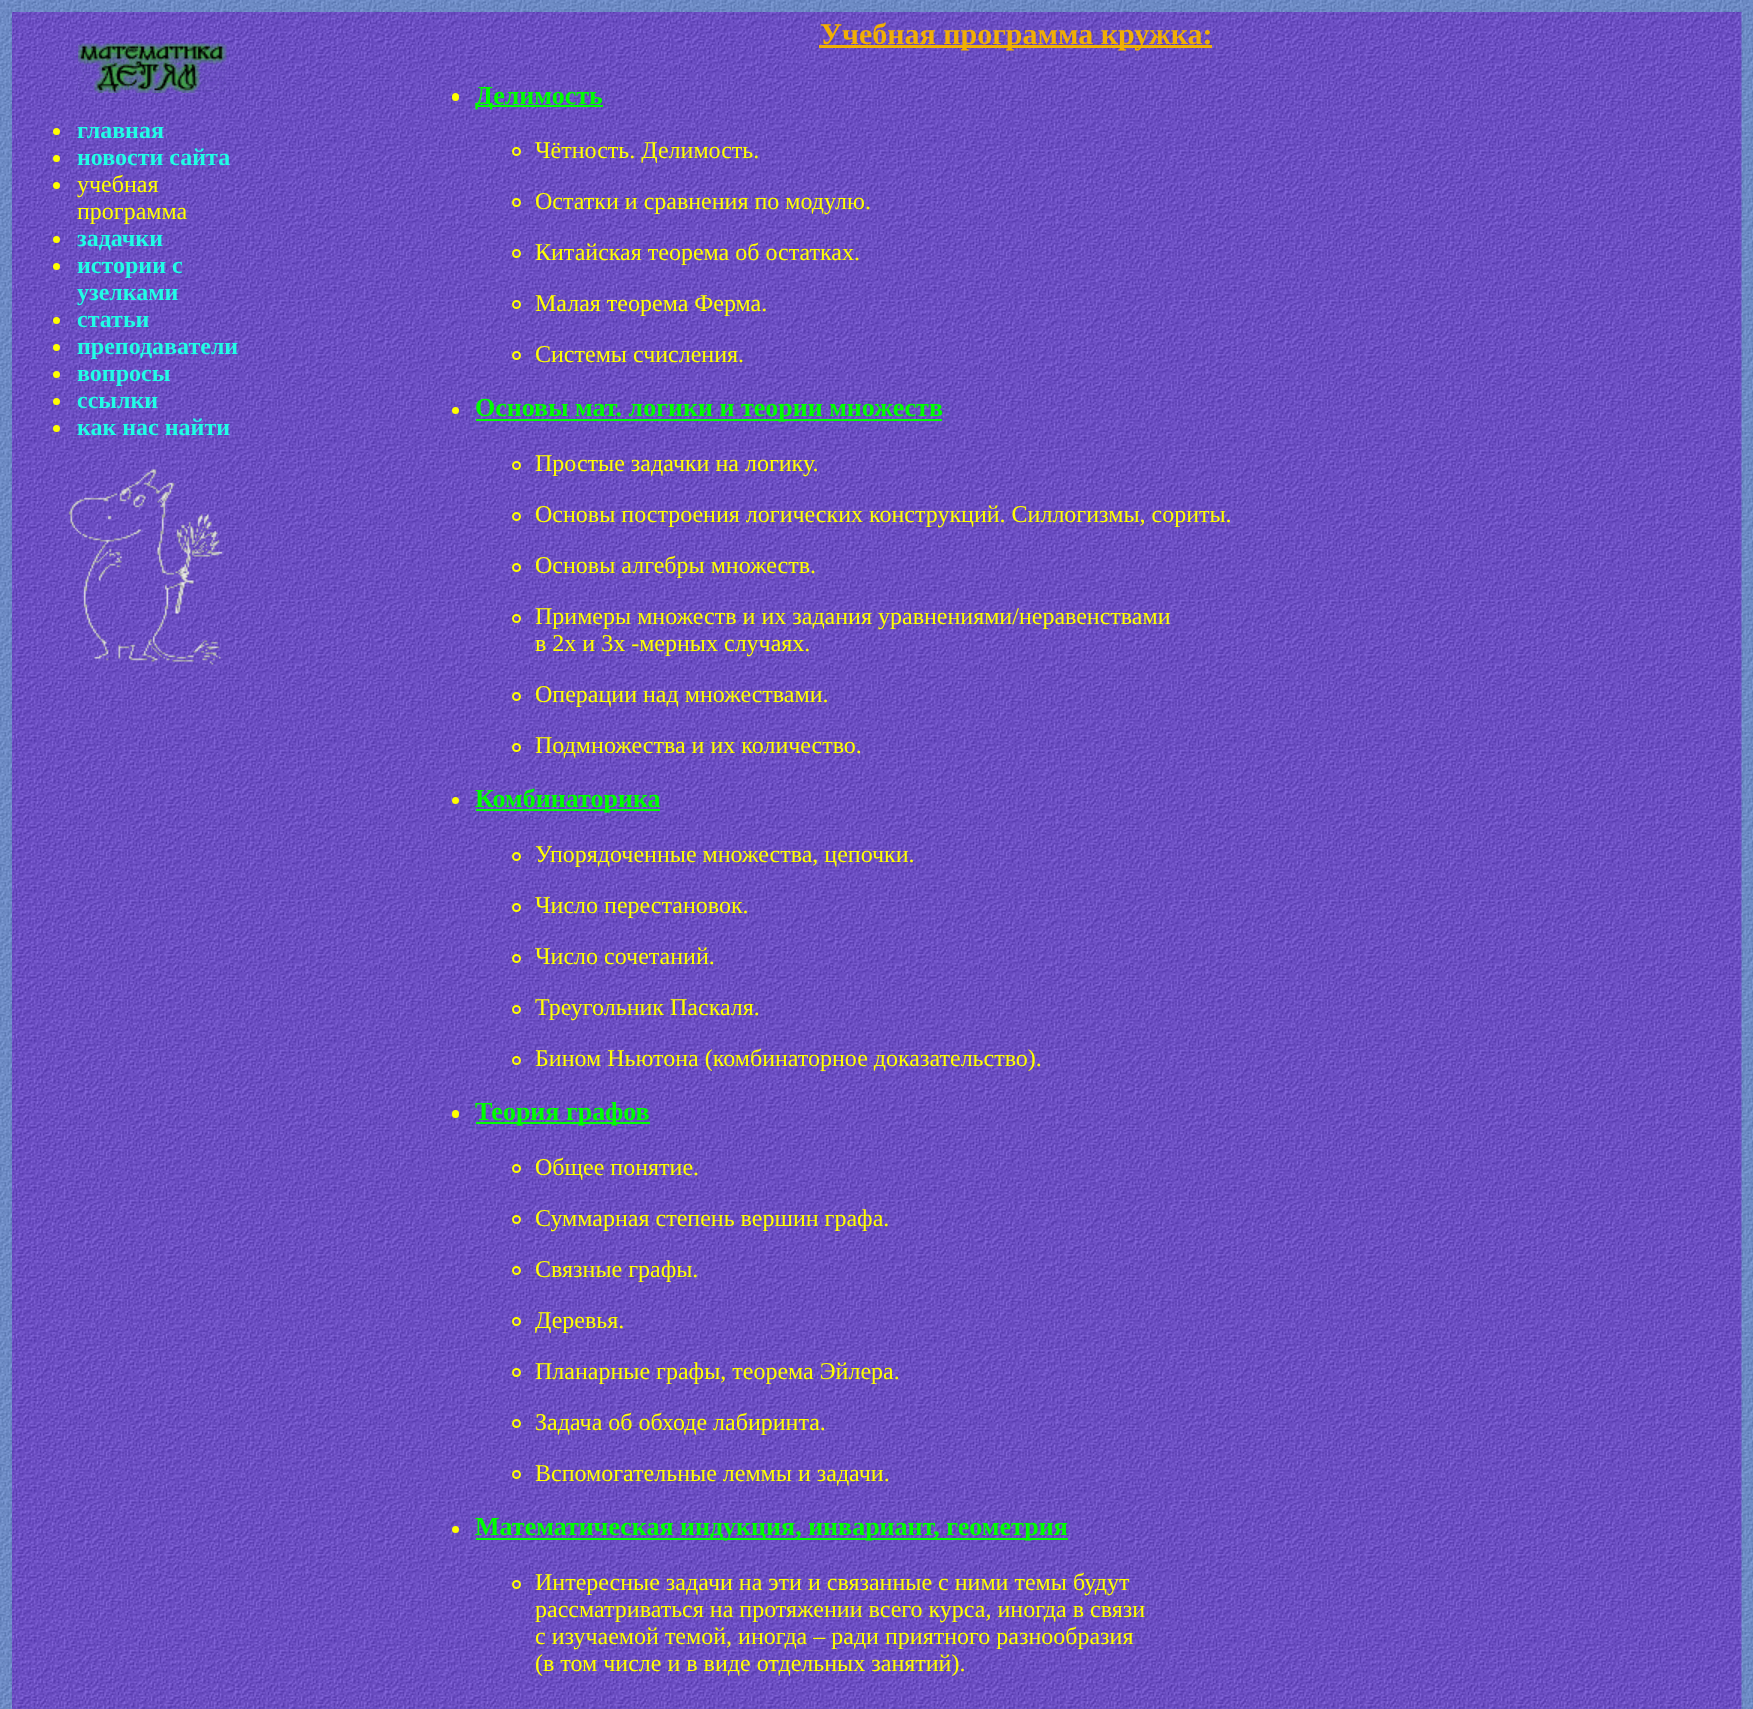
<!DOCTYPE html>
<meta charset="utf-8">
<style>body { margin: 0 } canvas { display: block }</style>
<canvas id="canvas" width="1753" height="1709"></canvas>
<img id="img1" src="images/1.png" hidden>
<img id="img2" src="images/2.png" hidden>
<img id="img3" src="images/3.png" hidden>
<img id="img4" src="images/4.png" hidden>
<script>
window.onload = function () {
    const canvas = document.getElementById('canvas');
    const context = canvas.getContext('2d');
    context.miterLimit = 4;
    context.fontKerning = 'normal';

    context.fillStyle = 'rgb(255, 255, 255)';
    context.fillRect(0, 0, 1753, 1709);
    context.drawImage(document.getElementById('img1'), 0, 0, 1753, 1709);
    context.drawImage(document.getElementById('img2'), 12, 12, 1730, 1697);
    context.drawImage(document.getElementById('img3'), 78, 43, 149, 50);
    context.fillStyle = 'rgb(255, 255, 0)';
    context.beginPath();
    context.arc(56.5, 131.5, 3.5, 0, 2 * Math.PI);
    context.fill();
    context.beginPath();
    context.arc(56.5, 158.5, 3.5, 0, 2 * Math.PI);
    context.fill();
    context.beginPath();
    context.arc(56.5, 185.5, 3.5, 0, 2 * Math.PI);
    context.fill();
    context.beginPath();
    context.arc(56.5, 239.5, 3.5, 0, 2 * Math.PI);
    context.fill();
    context.beginPath();
    context.arc(56.5, 266.5, 3.5, 0, 2 * Math.PI);
    context.fill();
    context.beginPath();
    context.arc(56.5, 320.5, 3.5, 0, 2 * Math.PI);
    context.fill();
    context.beginPath();
    context.arc(56.5, 347.5, 3.5, 0, 2 * Math.PI);
    context.fill();
    context.beginPath();
    context.arc(56.5, 374.5, 3.5, 0, 2 * Math.PI);
    context.fill();
    context.beginPath();
    context.arc(56.5, 401.5, 3.5, 0, 2 * Math.PI);
    context.fill();
    context.beginPath();
    context.arc(56.5, 428.5, 3.5, 0, 2 * Math.PI);
    context.fill();
    context.drawImage(document.getElementById('img4'), 68, 469, 155, 196);
    context.fillStyle = 'rgb(241, 175, 3)';
    context.fillRect(819, 45, 393, 3);
    context.fillStyle = 'rgb(255, 255, 0)';
    context.beginPath();
    context.roundRect(452, 93, 7, 8, 3.5);
    context.fill();
    context.fillStyle = 'rgb(0, 255, 0)';
    context.fillRect(476, 105, 127, 2);
    context.beginPath();
    context.arc(516.5, 151.5, 3.5, 0, 2 * Math.PI);
    context.strokeStyle = 'rgb(255, 255, 0)';
    context.lineWidth = 2;
    context.stroke();
    context.beginPath();
    context.arc(516.5, 202.5, 3.5, 0, 2 * Math.PI);
    context.stroke();
    context.beginPath();
    context.arc(516.5, 253.5, 3.5, 0, 2 * Math.PI);
    context.stroke();
    context.beginPath();
    context.arc(516.5, 304.5, 3.5, 0, 2 * Math.PI);
    context.stroke();
    context.beginPath();
    context.arc(516.5, 355.5, 3.5, 0, 2 * Math.PI);
    context.stroke();
    context.fillStyle = 'rgb(255, 255, 0)';
    context.beginPath();
    context.arc(455.5, 410.5, 3.5, 0, 2 * Math.PI);
    context.fill();
    context.fillStyle = 'rgb(0, 255, 0)';
    context.fillRect(476, 419, 466, 2);
    context.beginPath();
    context.arc(516.5, 465.5, 3.5, 0, 2 * Math.PI);
    context.stroke();
    context.beginPath();
    context.arc(516.5, 516.5, 3.5, 0, 2 * Math.PI);
    context.stroke();
    context.beginPath();
    context.arc(516.5, 567.5, 3.5, 0, 2 * Math.PI);
    context.stroke();
    context.beginPath();
    context.arc(516.5, 618.5, 3.5, 0, 2 * Math.PI);
    context.stroke();
    context.beginPath();
    context.arc(516.5, 696.5, 3.5, 0, 2 * Math.PI);
    context.stroke();
    context.beginPath();
    context.arc(516.5, 747.5, 3.5, 0, 2 * Math.PI);
    context.stroke();
    context.fillStyle = 'rgb(255, 255, 0)';
    context.beginPath();
    context.arc(455.5, 800.5, 3.5, 0, 2 * Math.PI);
    context.fill();
    context.fillStyle = 'rgb(0, 255, 0)';
    context.fillRect(476, 809, 184, 2);
    context.beginPath();
    context.arc(516.5, 856.5, 3.5, 0, 2 * Math.PI);
    context.stroke();
    context.beginPath();
    context.arc(516.5, 907.5, 3.5, 0, 2 * Math.PI);
    context.stroke();
    context.beginPath();
    context.arc(516.5, 958.5, 3.5, 0, 2 * Math.PI);
    context.stroke();
    context.beginPath();
    context.arc(516.5, 1009.5, 3.5, 0, 2 * Math.PI);
    context.stroke();
    context.beginPath();
    context.arc(516.5, 1060.5, 3.5, 0, 2 * Math.PI);
    context.stroke();
    context.fillStyle = 'rgb(255, 255, 0)';
    context.beginPath();
    context.roundRect(452, 1110, 7, 8, 3.5);
    context.fill();
    context.fillStyle = 'rgb(0, 255, 0)';
    context.fillRect(476, 1122, 174, 2);
    context.beginPath();
    context.arc(516.5, 1168.5, 3.5, 0, 2 * Math.PI);
    context.stroke();
    context.beginPath();
    context.arc(516.5, 1219.5, 3.5, 0, 2 * Math.PI);
    context.stroke();
    context.beginPath();
    context.arc(516.5, 1270.5, 3.5, 0, 2 * Math.PI);
    context.stroke();
    context.beginPath();
    context.arc(516.5, 1321.5, 3.5, 0, 2 * Math.PI);
    context.stroke();
    context.beginPath();
    context.arc(516.5, 1372.5, 3.5, 0, 2 * Math.PI);
    context.stroke();
    context.beginPath();
    context.arc(516.5, 1423.5, 3.5, 0, 2 * Math.PI);
    context.stroke();
    context.beginPath();
    context.arc(516.5, 1474.5, 3.5, 0, 2 * Math.PI);
    context.stroke();
    context.fillStyle = 'rgb(255, 255, 0)';
    context.beginPath();
    context.arc(455.5, 1529.5, 3.5, 0, 2 * Math.PI);
    context.fill();
    context.fillStyle = 'rgb(0, 255, 0)';
    context.fillRect(476, 1538, 592, 2);
    context.beginPath();
    context.arc(516.5, 1584.5, 3.5, 0, 2 * Math.PI);
    context.stroke();
    context.font = 'bold 24px Liberation Serif';
    context.fillStyle = 'rgb(33, 253, 230)';
    context.fillText('главная', 77, 138);
    context.fillText('новости сайта', 77, 165);
    context.font = '24px Liberation Serif';
    context.fillStyle = 'rgb(255, 255, 0)';
    context.fillText('учебная', 77, 192);
    context.fillText('программа', 77, 219);
    context.font = 'bold 24px Liberation Serif';
    context.fillStyle = 'rgb(33, 253, 230)';
    context.fillText('задачки', 77, 246);
    context.fillText('истории с', 77, 273);
    context.fillText('узелками', 77, 300);
    context.fillText('статьи', 77, 327);
    context.fillText('преподаватели', 77, 354);
    context.fillText('вопросы', 77, 381);
    context.fillText('ссылки', 77, 408);
    context.fillText('как нас найти', 77, 435);
    context.font = 'bold 30px Liberation Serif';
    context.fillStyle = 'rgb(241, 175, 3)';
    context.fillText('Учебная программа кружка:', 820, 44);
    context.font = 'bold 26px Liberation Serif';
    context.fillStyle = 'rgb(0, 255, 0)';
    context.fillText('Делимость', 475, 104);
    context.font = '24px Liberation Serif';
    context.fillStyle = 'rgb(255, 255, 0)';
    context.fillText('Чётность. Делимость.', 535, 158);
    context.fillText('Остатки и сравнения по модулю.', 535, 209);
    context.fillText('Китайская теорема об остатках.', 535, 260);
    context.fillText('Малая теорема Ферма.', 535, 311);
    context.fillText('Системы счисления.', 535, 362);
    context.font = 'bold 26px Liberation Serif';
    context.fillStyle = 'rgb(0, 255, 0)';
    context.fillText('Основы мат. логики и теории множеств', 475, 416);
    context.font = '24px Liberation Serif';
    context.fillStyle = 'rgb(255, 255, 0)';
    context.fillText('Простые задачки на логику.', 535, 471);
    context.fillText('Основы построения логических конструкций. Силлогизмы, сориты.', 535, 522);
    context.fillText('Основы алгебры множеств.', 535, 573);
    context.fillText('Примеры множеств и их задания уравнениями/неравенствами', 535, 624);
    context.fillText('в 2х и 3х -мерных случаях.', 535, 651);
    context.fillText('Операции над множествами.', 535, 702);
    context.fillText('Подмножества и их количество.', 535, 753);
    context.font = 'bold 26px Liberation Serif';
    context.fillStyle = 'rgb(0, 255, 0)';
    context.fillText('Комбинаторика', 475, 807);
    context.font = '24px Liberation Serif';
    context.fillStyle = 'rgb(255, 255, 0)';
    context.fillText('Упорядоченные множества, цепочки.', 535, 862);
    context.fillText('Число перестановок.', 535, 913);
    context.fillText('Число сочетаний.', 535, 964);
    context.fillText('Треугольник Паскаля.', 535, 1015);
    context.fillText('Бином Ньютона (комбинаторное доказательство).', 535, 1066);
    context.font = 'bold 26px Liberation Serif';
    context.fillStyle = 'rgb(0, 255, 0)';
    context.fillText('Теория графов', 475, 1120);
    context.font = '24px Liberation Serif';
    context.fillStyle = 'rgb(255, 255, 0)';
    context.fillText('Общее понятие.', 535, 1175);
    context.fillText('Суммарная степень вершин графа.', 535, 1226);
    context.fillText('Связные графы.', 535, 1277);
    context.fillText('Деревья.', 535, 1328);
    context.fillText('Планарные графы, теорема Эйлера.', 535, 1379);
    context.fillText('Задача об обходе лабиринта.', 535, 1430);
    context.fillText('Вспомогательные леммы и задачи.', 535, 1481);
    context.font = 'bold 26px Liberation Serif';
    context.fillStyle = 'rgb(0, 255, 0)';
    context.fillText('Математическая индукция, инвариант, геометрия', 475, 1535);
    context.font = '24px Liberation Serif';
    context.fillStyle = 'rgb(255, 255, 0)';
    context.fillText('Интересные задачи на эти и связанные с ними темы будут', 535, 1590);
    context.fillText('рассматриваться на протяжении всего курса, иногда в связи', 535, 1617);
    context.fillText('с изучаемой темой, иногда – ради приятного разнообразия', 535, 1644);
    context.fillText('(в том числе и в виде отдельных занятий).', 535, 1671);
};
</script>
